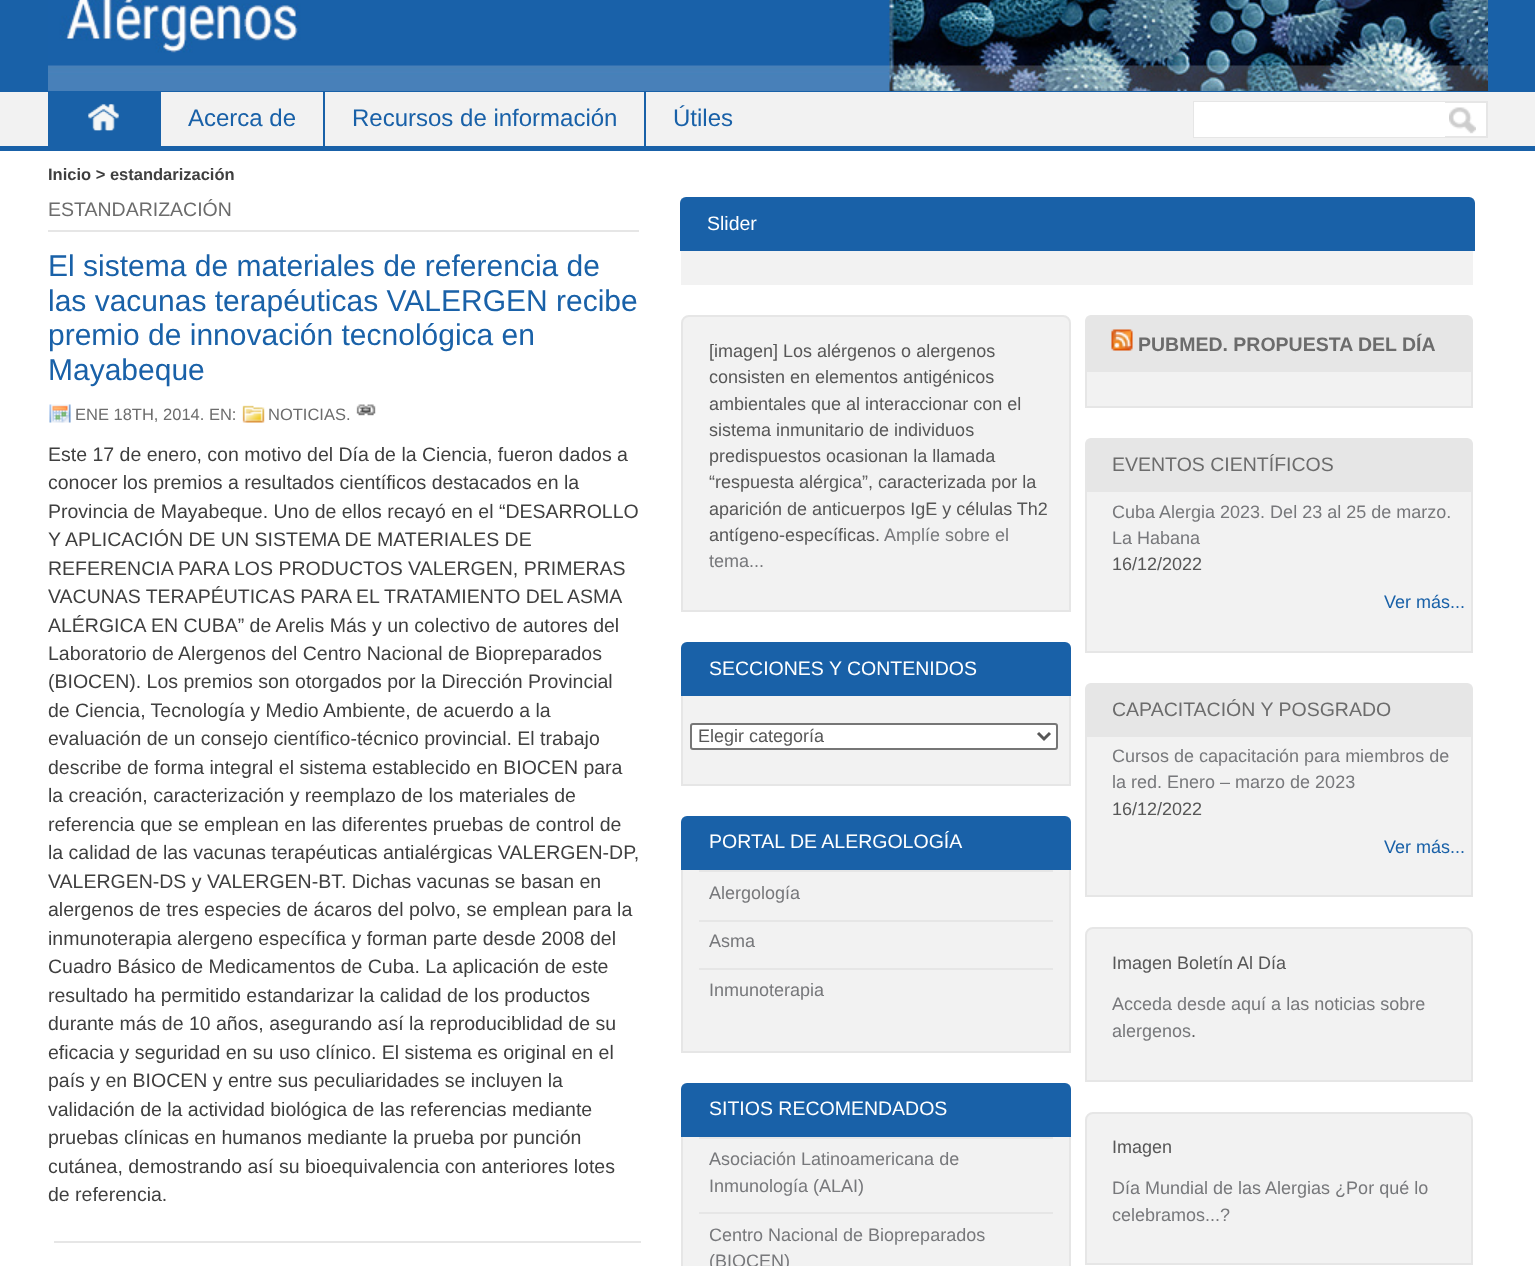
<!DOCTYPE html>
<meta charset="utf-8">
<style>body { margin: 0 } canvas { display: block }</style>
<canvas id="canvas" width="1535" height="1266"></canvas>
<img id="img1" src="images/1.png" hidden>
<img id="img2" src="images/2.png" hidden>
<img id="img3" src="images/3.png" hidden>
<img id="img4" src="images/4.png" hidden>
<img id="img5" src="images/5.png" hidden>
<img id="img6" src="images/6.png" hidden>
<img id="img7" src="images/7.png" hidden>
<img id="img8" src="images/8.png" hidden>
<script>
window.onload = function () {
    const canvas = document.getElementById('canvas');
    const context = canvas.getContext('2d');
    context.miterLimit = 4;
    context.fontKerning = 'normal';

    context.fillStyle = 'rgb(255, 255, 255)';
    context.fillRect(0, 0, 1535, 1266);
    context.fillStyle = 'rgb(25, 97, 168)';
    context.fillRect(0, 0, 1535, 92);
    context.drawImage(document.getElementById('img1'), 48, 0, 1440, 91);
    context.fillStyle = 'rgb(242, 242, 242)';
    context.fillRect(0, 92, 1535, 54);
    context.fillStyle = 'rgb(25, 97, 168)';
    context.fillRect(0, 146, 1535, 5);
    context.fillRect(48, 92, 113, 54);
    context.drawImage(document.getElementById('img2'), 88, 104, 31, 27);
    context.drawImage(document.getElementById('img3'), 88, 104, 31, 27);
    context.fillRect(323, 92, 2, 54);
    context.fillRect(644, 92, 2, 54);
    context.fillStyle = 'rgb(255, 255, 255)';
    context.fillRect(1445, 103, 41, 33);
    context.strokeStyle = 'rgb(230, 230, 230)';
    context.lineWidth = 2;
    context.strokeRect(1194, 102, 293, 35);
    context.fillRect(1194, 102, 251, 35);
    context.drawImage(document.getElementById('img4'), 1449, 107, 27, 27);
    context.fillStyle = 'rgb(230, 230, 230)';
    context.fillRect(48, 230, 591, 2);
    context.drawImage(document.getElementById('img5'), 49, 404, 22, 19);
    context.drawImage(document.getElementById('img6'), 242, 405, 23, 18);
    context.drawImage(document.getElementById('img7'), 356, 404, 20, 12);
    context.fillRect(54, 1241, 587, 2);
    context.fillStyle = 'rgb(242, 242, 242)';
    context.fillRect(681, 198, 792, 87);
    context.fillStyle = 'rgb(25, 97, 168)';
    context.beginPath();
    context.roundRect(680, 197, 795, 54, [6, 6, 0, 0]);
    context.fill();
    context.fillStyle = 'rgb(242, 242, 242)';
    context.beginPath();
    context.roundRect(682, 316, 388, 295, [7, 7, 0, 0]);
    context.fill();
    context.stroke();
    context.beginPath();
    context.roundRect(682, 643, 388, 142, [7, 7, 0, 0]);
    context.fill();
    context.stroke();
    context.fillStyle = 'rgb(25, 97, 168)';
    context.beginPath();
    context.roundRect(681, 642, 390, 54, [6, 6, 0, 0]);
    context.fill();
    context.fillStyle = 'rgb(255, 255, 255)';
    context.beginPath();
    context.roundRect(691, 724, 366, 25, 2);
    context.fill();
    context.strokeStyle = 'rgb(118, 118, 118)';
    context.stroke();
    context.beginPath();
    context.moveTo(1038, 733);
    context.lineTo(1044, 739);
    context.lineTo(1050, 733);
    context.strokeStyle = 'rgb(87, 87, 87)';
    context.lineWidth = 3;
    context.stroke();
    context.fillStyle = 'rgb(242, 242, 242)';
    context.beginPath();
    context.roundRect(682, 817, 388, 235, [7, 7, 0, 0]);
    context.fill();
    context.strokeStyle = 'rgb(230, 230, 230)';
    context.lineWidth = 2;
    context.stroke();
    context.fillStyle = 'rgb(25, 97, 168)';
    context.beginPath();
    context.roundRect(681, 816, 390, 54, [6, 6, 0, 0]);
    context.fill();
    context.fillStyle = 'rgb(230, 230, 230)';
    context.fillRect(699, 870, 354, 2);
    context.fillRect(699, 920, 354, 2);
    context.fillRect(699, 968, 354, 2);
    context.fillStyle = 'rgb(242, 242, 242)';
    context.beginPath();
    context.moveTo(689, 1084);
    context.lineTo(1063, 1084);
    context.bezierCurveTo(1067, 1084, 1070, 1087, 1070, 1091);
    context.lineTo(1070, 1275);
    context.lineTo(682, 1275);
    context.lineTo(682, 1091);
    context.bezierCurveTo(682, 1087, 685, 1084, 689, 1084);
    context.closePath();
    context.fill();
    context.stroke();
    context.fillStyle = 'rgb(25, 97, 168)';
    context.beginPath();
    context.roundRect(681, 1083, 390, 54, [6, 6, 0, 0]);
    context.fill();
    context.fillStyle = 'rgb(230, 230, 230)';
    context.fillRect(699, 1137, 354, 2);
    context.fillRect(699, 1212, 354, 2);
    context.fillStyle = 'rgb(242, 242, 242)';
    context.beginPath();
    context.roundRect(1086, 316, 386, 91, [7, 7, 0, 0]);
    context.fill();
    context.stroke();
    context.fillStyle = 'rgb(230, 230, 230)';
    context.beginPath();
    context.roundRect(1085, 315, 388, 57, [6, 6, 0, 0]);
    context.fill();
    context.drawImage(document.getElementById('img8'), 1111, 329, 22, 22);
    context.fillStyle = 'rgb(242, 242, 242)';
    context.beginPath();
    context.roundRect(1086, 439, 386, 213, [7, 7, 0, 0]);
    context.fill();
    context.stroke();
    context.fillStyle = 'rgb(230, 230, 230)';
    context.beginPath();
    context.roundRect(1085, 438, 388, 54, [6, 6, 0, 0]);
    context.fill();
    context.fillStyle = 'rgb(242, 242, 242)';
    context.beginPath();
    context.roundRect(1086, 684, 386, 212, [7, 7, 0, 0]);
    context.fill();
    context.stroke();
    context.fillStyle = 'rgb(230, 230, 230)';
    context.beginPath();
    context.roundRect(1085, 683, 388, 54, [6, 6, 0, 0]);
    context.fill();
    context.fillStyle = 'rgb(242, 242, 242)';
    context.beginPath();
    context.roundRect(1086, 928, 386, 153, [7, 7, 0, 0]);
    context.fill();
    context.stroke();
    context.beginPath();
    context.roundRect(1086, 1113, 386, 151, [7, 7, 0, 0]);
    context.fill();
    context.stroke();
    context.font = '24px Liberation Sans';
    context.fillStyle = 'rgb(25, 97, 168)';
    context.fillText('Acerca de', 188, 126);
    context.fillText('Recursos de información', 352, 126);
    context.fillText('Útiles', 673, 126);
    context.font = 'bold 16.5px Liberation Sans';
    context.fillStyle = 'rgb(63, 63, 63)';
    context.fillText('Inicio > estandarización', 48, 180);
    context.font = '19.5px Liberation Sans';
    context.fillStyle = 'rgb(108, 108, 108)';
    context.fillText('ESTANDARIZACIÓN', 48, 216);
    context.font = '30px Liberation Sans';
    context.fillStyle = 'rgb(25, 97, 168)';
    context.fillText('El sistema de materiales de referencia de', 48, 276);
    context.fillText('las vacunas terapéuticas VALERGEN recibe', 48, 311);
    context.fillText('premio de innovación tecnológica en', 48, 345);
    context.fillText('Mayabeque', 48, 380);
    context.font = '16.5px Liberation Sans';
    context.fillStyle = 'rgb(108, 108, 108)';
    context.fillText('ENE 18TH, 2014. EN:', 75, 420);
    context.fillText('NOTICIAS.', 268, 420);
    context.font = '19.5px Liberation Sans';
    context.fillStyle = 'rgb(63, 63, 63)';
    context.fillText('Este 17 de enero, con motivo del Día de la Ciencia, fueron dados a', 48, 461);
    context.fillText('conocer los premios a resultados científicos destacados en la', 48, 489);
    context.fillText('Provincia de Mayabeque. Uno de ellos recayó en el “DESARROLLO', 48, 518);
    context.fillText('Y APLICACIÓN DE UN SISTEMA DE MATERIALES DE', 48, 546);
    context.fillText('REFERENCIA PARA LOS PRODUCTOS VALERGEN, PRIMERAS', 48, 575);
    context.wordSpacing = '-0.25px';
    context.fillText('VACUNAS TERAPÉUTICAS PARA EL TRATAMIENTO DEL ASMA', 48, 603);
    context.wordSpacing = '0px';
    context.fillText('ALÉRGICA EN CUBA” de Arelis Más y un colectivo de autores del', 48, 632);
    context.fillText('Laboratorio de Alergenos del Centro Nacional de Biopreparados', 48, 660);
    context.fillText('(BIOCEN). Los premios son otorgados por la Dirección Provincial', 48, 688);
    context.fillText('de Ciencia, Tecnología y Medio Ambiente, de acuerdo a la', 48, 717);
    context.fillText('evaluación de un consejo científico-técnico provincial. El trabajo', 48, 745);
    context.fillText('describe de forma integral el sistema establecido en BIOCEN para', 48, 774);
    context.fillText('la creación, caracterización y reemplazo de los materiales de', 48, 802);
    context.fillText('referencia que se emplean en las diferentes pruebas de control de', 48, 831);
    context.fillText('la calidad de las vacunas terapéuticas antialérgicas VALERGEN-DP,', 48, 859);
    context.fillText('VALERGEN-DS y VALERGEN-BT. Dichas vacunas se basan en', 48, 888);
    context.fillText('alergenos de tres especies de ácaros del polvo, se emplean para la', 48, 916);
    context.fillText('inmunoterapia alergeno específica y forman parte desde 2008 del', 48, 945);
    context.fillText('Cuadro Básico de Medicamentos de Cuba. La aplicación de este', 48, 973);
    context.fillText('resultado ha permitido estandarizar la calidad de los productos', 48, 1002);
    context.fillText('durante más de 10 años, asegurando así la reproduciblidad de su', 48, 1030);
    context.fillText('eficacia y seguridad en su uso clínico. El sistema es original en el', 48, 1059);
    context.fillText('país y en BIOCEN y entre sus peculiaridades se incluyen la', 48, 1087);
    context.fillText('validación de la actividad biológica de las referencias mediante', 48, 1116);
    context.fillText('pruebas clínicas en humanos mediante la prueba por punción', 48, 1144);
    context.fillText('cutánea, demostrando así su bioequivalencia con anteriores lotes', 48, 1173);
    context.fillText('de referencia.', 48, 1201);
    context.fillStyle = 'rgb(255, 255, 255)';
    context.fillText('Slider', 707, 230);
    context.font = '18px Liberation Sans';
    context.fillStyle = 'rgb(87, 87, 87)';
    context.fillText('[imagen] Los alérgenos o alergenos', 709, 357);
    context.fillText('consisten en elementos antigénicos', 709, 383);
    context.fillText('ambientales que al interaccionar con el', 709, 410);
    context.fillText('sistema inmunitario de individuos', 709, 436);
    context.fillText('predispuestos ocasionan la llamada', 709, 462);
    context.fillText('“respuesta alérgica”, caracterizada por la', 709, 488);
    context.fillText('aparición de anticuerpos IgE y células Th2', 709, 515);
    context.fillText('antígeno-específicas.', 709, 541);
    context.fillStyle = 'rgb(119, 120, 123)';
    context.fillText('Amplíe sobre el', 884, 541);
    context.fillText('tema...', 709, 567);
    context.font = '19.5px Liberation Sans';
    context.fillStyle = 'rgb(255, 255, 255)';
    context.fillText('SECCIONES Y CONTENIDOS', 709, 675);
    context.font = '18px Liberation Sans';
    context.fillStyle = 'rgb(87, 87, 87)';
    context.fillText('Elegir categoría', 698, 742);
    context.font = '19.5px Liberation Sans';
    context.fillStyle = 'rgb(255, 255, 255)';
    context.fillText('PORTAL DE ALERGOLOGÍA', 709, 848);
    context.font = '18px Liberation Sans';
    context.fillStyle = 'rgb(119, 120, 123)';
    context.fillText('Alergología', 709, 899);
    context.fillText('Asma', 709, 947);
    context.fillText('Inmunoterapia', 709, 996);
    context.font = '19.5px Liberation Sans';
    context.fillStyle = 'rgb(255, 255, 255)';
    context.fillText('SITIOS RECOMENDADOS', 709, 1115);
    context.font = '18px Liberation Sans';
    context.fillStyle = 'rgb(119, 120, 123)';
    context.fillText('Asociación Latinoamericana de', 709, 1165);
    context.fillText('Inmunología (ALAI)', 709, 1192);
    context.fillText('Centro Nacional de Biopreparados', 709, 1241);
    context.fillText('(BIOCEN)', 709, 1267);
    context.font = 'bold 19.5px Liberation Sans';
    context.fillStyle = 'rgb(108, 108, 108)';
    context.fillText('PUBMED. PROPUESTA DEL DÍA', 1138, 351);
    context.font = '19.5px Liberation Sans';
    context.fillText('EVENTOS CIENTÍFICOS', 1112, 471);
    context.font = '18px Liberation Sans';
    context.fillStyle = 'rgb(119, 120, 123)';
    context.fillText('Cuba Alergia 2023. Del 23 al 25 de marzo.', 1112, 518);
    context.fillText('La Habana', 1112, 544);
    context.fillStyle = 'rgb(87, 87, 87)';
    context.fillText('16/12/2022', 1112, 570);
    context.fillStyle = 'rgb(25, 97, 168)';
    context.fillText('Ver más...', 1384, 608);
    context.font = '19.5px Liberation Sans';
    context.fillStyle = 'rgb(108, 108, 108)';
    context.fillText('CAPACITACIÓN Y POSGRADO', 1112, 716);
    context.font = '18px Liberation Sans';
    context.fillStyle = 'rgb(119, 120, 123)';
    context.fillText('Cursos de capacitación para miembros de', 1112, 762);
    context.fillText('la red. Enero – marzo de 2023', 1112, 788);
    context.fillStyle = 'rgb(87, 87, 87)';
    context.fillText('16/12/2022', 1112, 815);
    context.fillStyle = 'rgb(25, 97, 168)';
    context.fillText('Ver más...', 1384, 853);
    context.fillStyle = 'rgb(87, 87, 87)';
    context.fillText('Imagen Boletín Al Día', 1112, 969);
    context.fillStyle = 'rgb(119, 120, 123)';
    context.fillText('Acceda desde aquí a las noticias sobre', 1112, 1010);
    context.fillText('alergenos', 1112, 1037);
    context.fillStyle = 'rgb(87, 87, 87)';
    context.fillText('.', 1191, 1037);
    context.fillText('Imagen', 1112, 1153);
    context.fillStyle = 'rgb(119, 120, 123)';
    context.fillText('Día Mundial de las Alergias ¿Por qué lo', 1112, 1194);
    context.fillText('celebramos...?', 1112, 1221);
};
</script>
